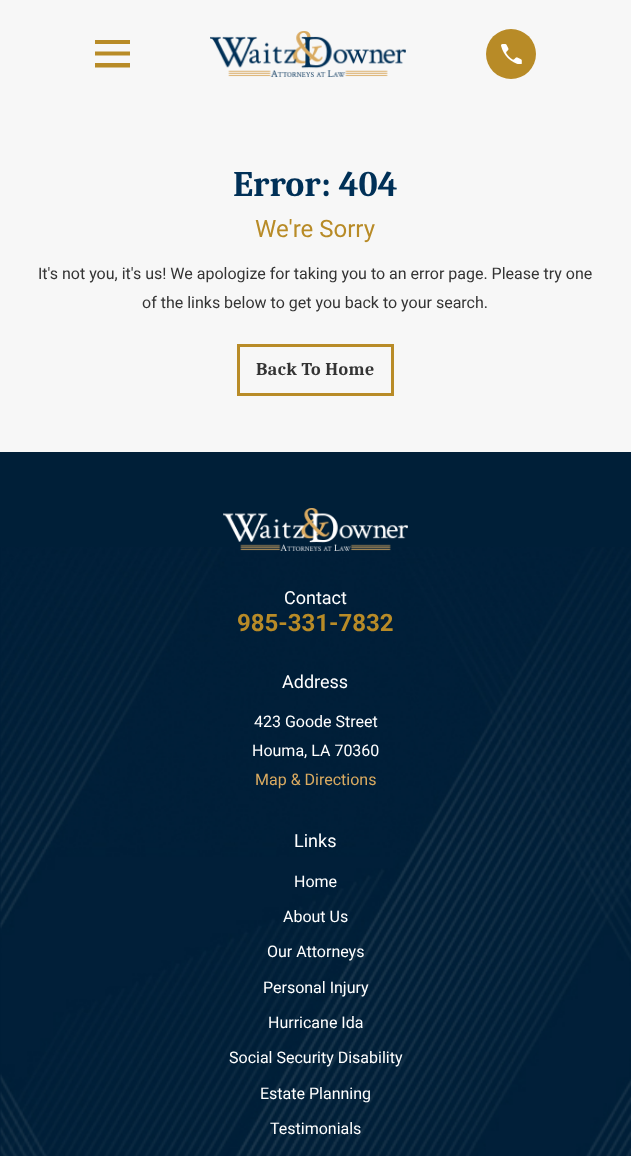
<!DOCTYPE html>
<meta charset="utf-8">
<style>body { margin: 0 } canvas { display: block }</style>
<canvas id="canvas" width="631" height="1156"></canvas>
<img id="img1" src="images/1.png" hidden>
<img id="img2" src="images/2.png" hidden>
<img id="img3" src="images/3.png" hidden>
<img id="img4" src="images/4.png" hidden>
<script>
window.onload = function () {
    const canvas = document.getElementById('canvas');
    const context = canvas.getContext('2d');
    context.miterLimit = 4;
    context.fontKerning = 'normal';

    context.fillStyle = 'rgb(247, 247, 247)';
    context.fillRect(0, 0, 631, 1156);
    context.fillStyle = 'rgb(184, 139, 39)';
    context.beginPath();
    context.moveTo(95, 40);
    context.lineTo(95, 44);
    context.lineTo(130, 44);
    context.lineTo(130, 40);
    context.closePath();
    context.moveTo(95, 51.5);
    context.lineTo(95, 55.5);
    context.lineTo(130, 55.5);
    context.lineTo(130, 51.5);
    context.closePath();
    context.moveTo(95, 63);
    context.lineTo(95, 67.5);
    context.lineTo(130, 67.5);
    context.lineTo(130, 63);
    context.closePath();
    context.fill();
    context.drawImage(document.getElementById('img1'), 210, 31, 196, 46);
    context.beginPath();
    context.arc(511, 54, 25, 0, 2 * Math.PI);
    context.fill();
    context.drawImage(document.getElementById('img2'), 501, 44, 21, 20);
    context.strokeStyle = 'rgb(184, 139, 39)';
    context.lineWidth = 3;
    context.strokeRect(238.5, 345.5, 154, 49);
    context.fillStyle = 'rgb(0, 31, 56)';
    context.fillRect(0, 452, 631, 704);
    context.drawImage(document.getElementById('img3'), 0, 547, 631, 609);
    context.drawImage(document.getElementById('img4'), 223, 508, 185, 43);
    context.font = 'bold 36px Caladea';
    context.fillStyle = 'rgb(0, 48, 87)';
    context.fillText('Error: 404', 233, 196);
    context.font = '24px Roboto';
    context.fillStyle = 'rgb(184, 139, 39)';
    context.fillText('We\'re Sorry', 255, 237);
    context.font = '16px Roboto';
    context.fillStyle = 'rgb(52, 52, 52)';
    context.fillText('It\'s not you, it\'s us! We apologize for taking you to an error page. Please try one', 38, 279);
    context.fillText('of the links below to get you back to your search.', 142, 308);
    context.letterSpacing = '0.4px';
    context.font = 'bold 18px Caladea';
    context.fillText('Back To Home', 256, 375);
    context.letterSpacing = '0px';
    context.font = '18px Roboto';
    context.fillStyle = 'rgb(255, 255, 255)';
    context.fillText('Contact', 284, 604);
    context.font = 'bold 24px Roboto';
    context.fillStyle = 'rgb(184, 139, 39)';
    context.fillText('985-331-7832', 237, 631);
    context.font = '18px Roboto';
    context.fillStyle = 'rgb(255, 255, 255)';
    context.fillText('Address', 282, 688);
    context.font = '16px Roboto';
    context.fillText('423 Goode Street', 254, 727);
    context.fillText('Houma, LA 70360', 252, 756);
    context.fillStyle = 'rgb(218, 171, 97)';
    context.fillText('Map & Directions', 255, 785);
    context.font = '18px Roboto';
    context.fillStyle = 'rgb(255, 255, 255)';
    context.fillText('Links', 294, 847);
    context.font = '16px Roboto';
    context.fillText('Home', 294, 887);
    context.fillText('About Us', 283, 922);
    context.fillText('Our Attorneys', 267, 957);
    context.fillText('Personal Injury', 263, 993);
    context.fillText('Hurricane Ida', 268, 1028);
    context.fillText('Social Security Disability', 229, 1063);
    context.fillText('Estate Planning', 260, 1099);
    context.fillText('Testimonials', 270, 1134);
};
</script>
